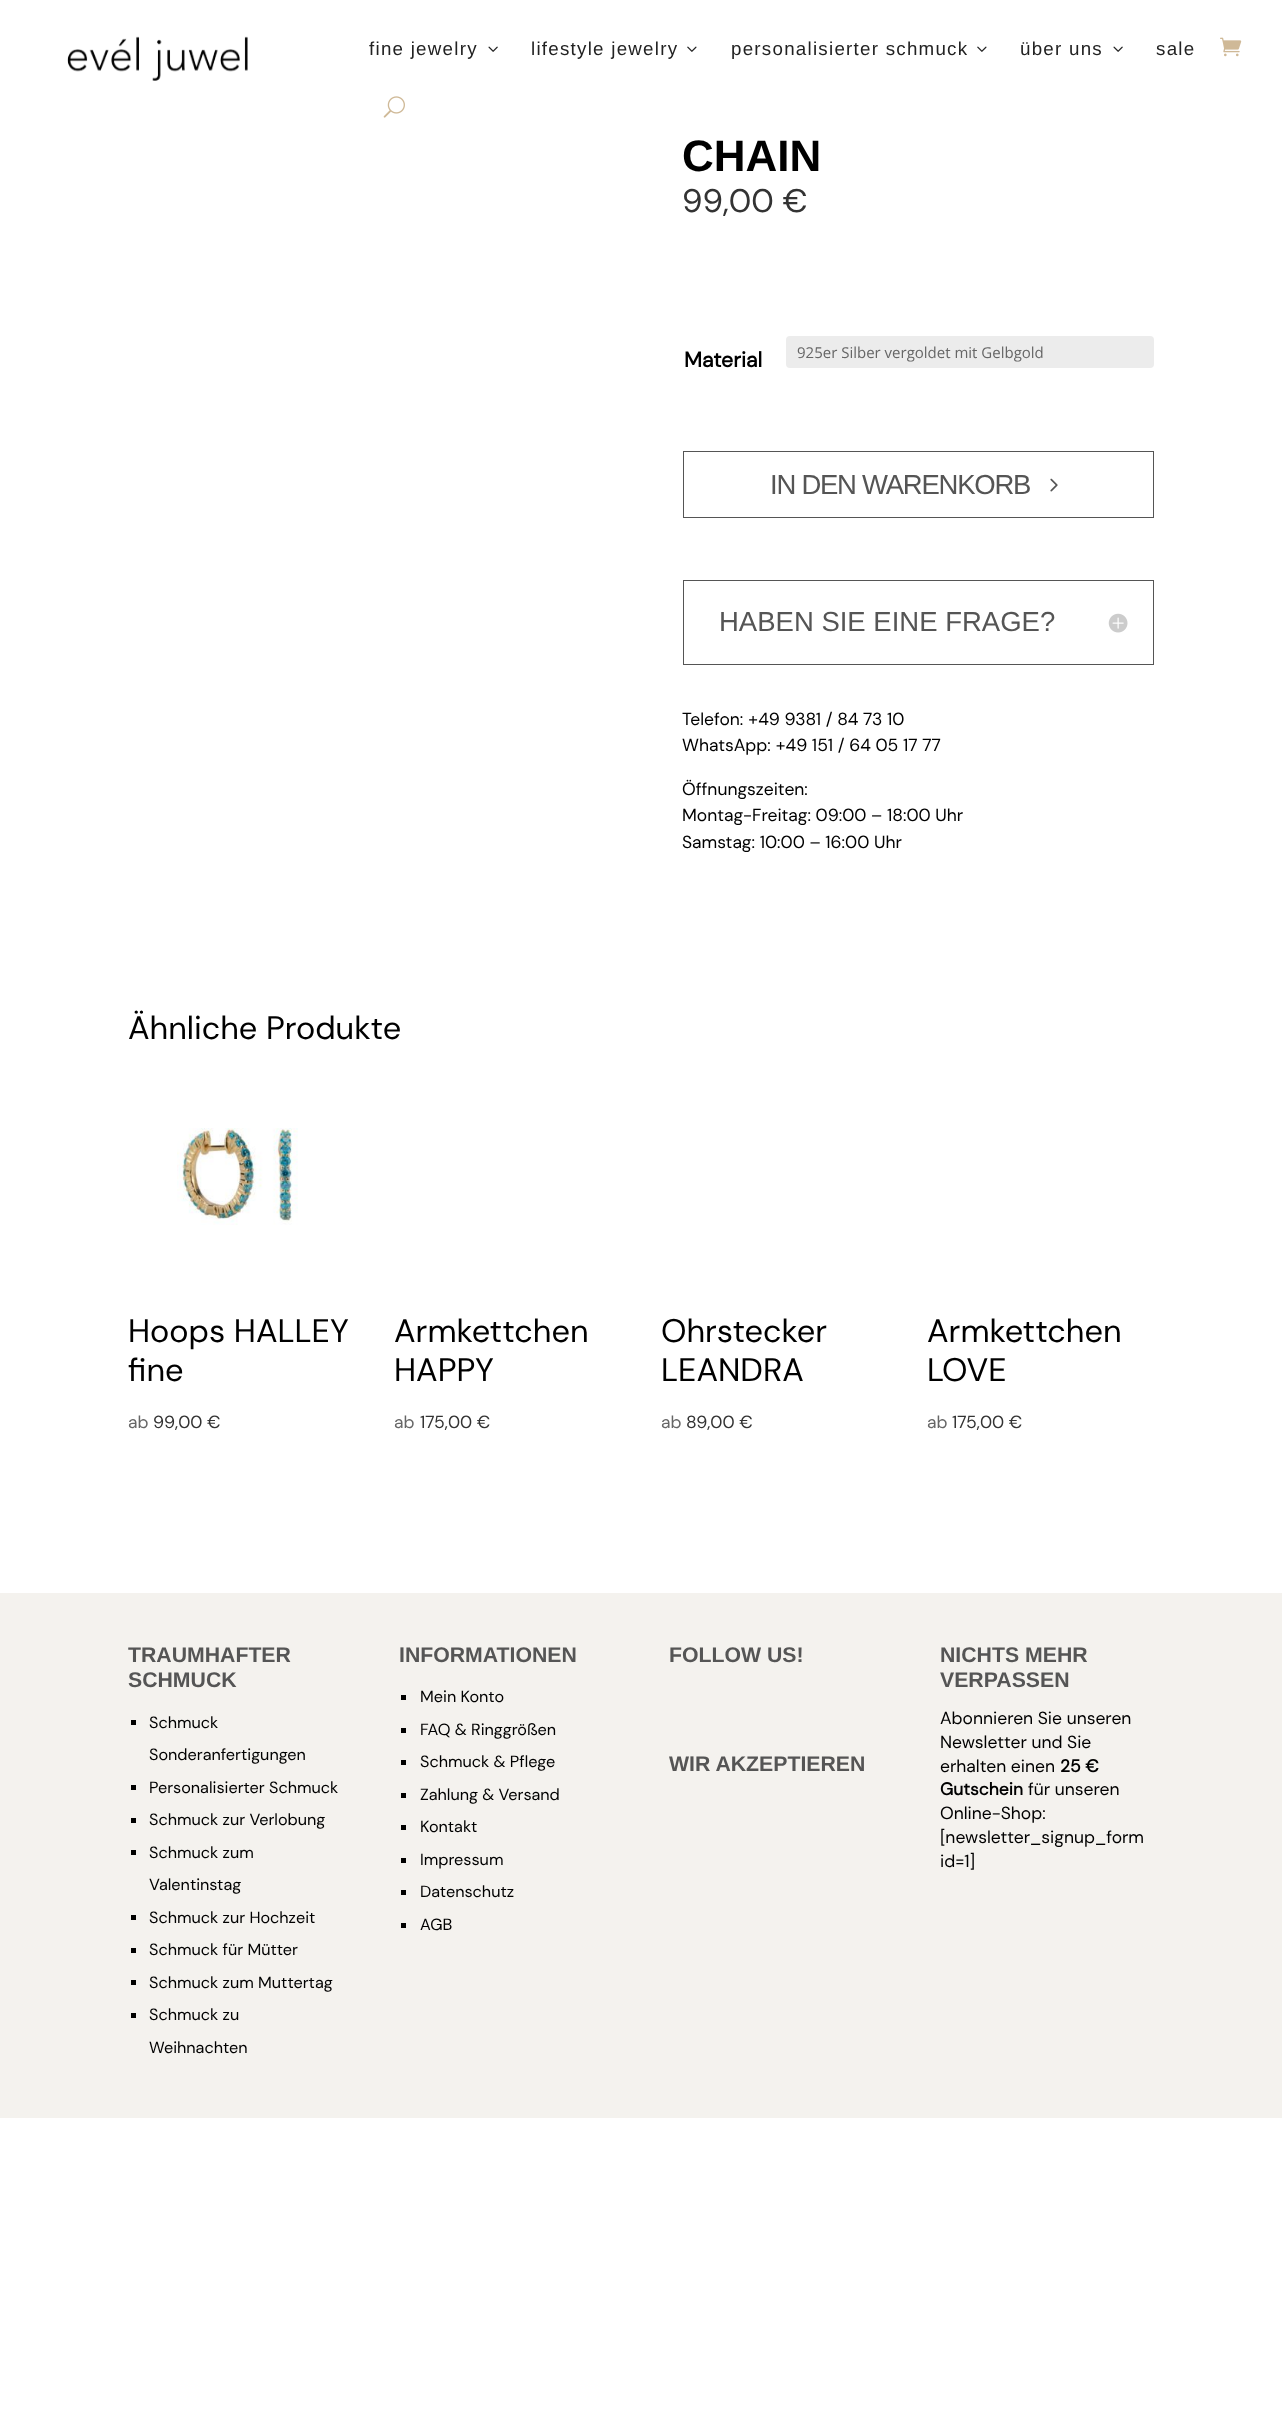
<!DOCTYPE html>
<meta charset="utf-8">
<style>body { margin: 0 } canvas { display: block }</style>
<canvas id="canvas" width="1282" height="2416"></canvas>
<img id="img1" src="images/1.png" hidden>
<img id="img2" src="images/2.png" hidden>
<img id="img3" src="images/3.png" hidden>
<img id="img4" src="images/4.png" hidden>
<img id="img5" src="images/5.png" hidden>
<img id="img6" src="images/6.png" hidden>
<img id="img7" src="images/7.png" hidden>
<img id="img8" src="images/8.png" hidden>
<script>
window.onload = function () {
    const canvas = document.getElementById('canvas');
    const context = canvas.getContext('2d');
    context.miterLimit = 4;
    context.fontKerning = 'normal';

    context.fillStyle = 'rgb(255, 255, 255)';
    context.fillRect(0, 0, 1282, 2416);
    context.drawImage(document.getElementById('img1'), 67, 36, 181, 45);
    context.drawImage(document.getElementById('img2'), 488, 46, 10, 6);
    context.drawImage(document.getElementById('img3'), 687, 46, 10, 6);
    context.drawImage(document.getElementById('img3'), 977, 46, 10, 6);
    context.drawImage(document.getElementById('img2'), 1113, 46, 10, 6);
    context.drawImage(document.getElementById('img4'), 1220, 37, 22, 20);
    context.drawImage(document.getElementById('img5'), 383, 96, 22, 22);
    context.fillStyle = 'rgb(236, 236, 236)';
    context.beginPath();
    context.roundRect(786, 336, 368, 32, 4);
    context.fill();
    context.strokeStyle = 'rgb(85, 85, 85)';
    context.strokeRect(683.5, 451.5, 470, 66);
    context.drawImage(document.getElementById('img6'), 1050, 478, 8, 14);
    context.strokeRect(683.5, 580.5, 470, 84);
    context.drawImage(document.getElementById('img7'), 1108, 613, 20, 20);
    context.drawImage(document.getElementById('img8'), 177, 1128, 121, 97);
    context.fillStyle = 'rgb(244, 242, 238)';
    context.fillRect(0, 1593, 1282, 525);
    context.fillStyle = 'rgb(0, 0, 0)';
    context.fillRect(131, 1720, 5, 5);
    context.fillRect(131, 1785, 5, 5);
    context.fillRect(131, 1818, 5, 5);
    context.fillRect(131, 1850, 5, 5);
    context.fillRect(131, 1915, 5, 5);
    context.fillRect(131, 1948, 5, 5);
    context.fillRect(131, 1980, 5, 5);
    context.fillRect(131, 2013, 5, 5);
    context.fillRect(401, 1695, 5, 5);
    context.fillRect(401, 1728, 5, 5);
    context.fillRect(401, 1760, 5, 5);
    context.fillRect(401, 1793, 5, 5);
    context.fillRect(401, 1825, 5, 5);
    context.fillRect(401, 1858, 5, 5);
    context.fillRect(401, 1890, 5, 5);
    context.fillRect(401, 1923, 5, 5);
    context.letterSpacing = '1.25px';
    context.font = '18.75px Liberation Sans';
    context.fillStyle = 'rgb(34, 34, 34)';
    context.fillText('fine jewelry', 369, 55);
    context.fillText('lifestyle jewelry', 531, 55);
    context.fillText('personalisierter schmuck', 731, 55);
    context.fillText('über uns', 1020, 55);
    context.fillText('sale', 1156, 55);
    context.letterSpacing = '0px';
    context.font = 'bold 44px Liberation Sans';
    context.fillStyle = 'rgb(0, 0, 0)';
    context.fillText('CHAIN', 682, 171);
    context.font = '32.5px DM Sans';
    context.fillStyle = 'rgb(51, 51, 51)';
    context.fillText('99,00 €', 682, 212);
    context.font = 'bold 21.25px DM Sans';
    context.fillStyle = 'rgb(0, 0, 0)';
    context.fillText('Material', 684, 367);
    context.font = '15px Open Sans';
    context.fillStyle = 'rgb(102, 102, 102)';
    context.fillText('925er Silber vergoldet mit Gelbgold', 797, 358);
    context.letterSpacing = '-1.25px';
    context.font = '27.5px Liberation Sans';
    context.fillStyle = 'rgb(85, 85, 85)';
    context.fillText('IN DEN WARENKORB', 770, 494);
    context.letterSpacing = '0px';
    context.fillText('HABEN SIE EINE FRAGE?', 719, 631);
    context.font = '17.5px DM Sans';
    context.fillStyle = 'rgb(0, 0, 0)';
    context.fillText('Telefon: +49 9381 / 84 73 10', 682, 725);
    context.fillText('WhatsApp: +49 151 / 64 05 17 77', 682, 751);
    context.fillText('Öffnungszeiten:', 682, 795);
    context.fillText('Montag-Freitag: 09:00 – 18:00 Uhr', 682, 821);
    context.fillText('Samstag: 10:00 – 16:00 Uhr', 682, 848);
    context.font = '32.5px DM Sans';
    context.fillText('Ähnliche Produkte', 128, 1039);
    context.fillText('Hoops HALLEY', 128, 1342);
    context.fillText('fine', 128, 1381);
    context.font = '17.5px DM Sans';
    context.fillStyle = 'rgb(102, 102, 102)';
    context.fillText('ab', 128, 1428);
    context.fillStyle = 'rgb(51, 51, 51)';
    context.fillText('99,00 €', 153, 1428);
    context.font = '32.5px DM Sans';
    context.fillStyle = 'rgb(0, 0, 0)';
    context.fillText('Armkettchen', 394, 1342);
    context.fillText('HAPPY', 394, 1381);
    context.font = '17.5px DM Sans';
    context.fillStyle = 'rgb(102, 102, 102)';
    context.fillText('ab', 394, 1428);
    context.fillStyle = 'rgb(51, 51, 51)';
    context.fillText('175,00 €', 420, 1428);
    context.font = '32.5px DM Sans';
    context.fillStyle = 'rgb(0, 0, 0)';
    context.fillText('Ohrstecker', 661, 1342);
    context.fillText('LEANDRA', 661, 1381);
    context.font = '17.5px DM Sans';
    context.fillStyle = 'rgb(102, 102, 102)';
    context.fillText('ab', 661, 1428);
    context.fillStyle = 'rgb(51, 51, 51)';
    context.fillText('89,00 €', 686, 1428);
    context.font = '32.5px DM Sans';
    context.fillStyle = 'rgb(0, 0, 0)';
    context.fillText('Armkettchen', 927, 1342);
    context.fillText('LOVE', 927, 1381);
    context.font = '17.5px DM Sans';
    context.fillStyle = 'rgb(102, 102, 102)';
    context.fillText('ab', 927, 1428);
    context.fillStyle = 'rgb(51, 51, 51)';
    context.fillText('175,00 €', 952, 1428);
    context.font = 'bold 21.25px Liberation Sans';
    context.fillStyle = 'rgb(85, 85, 85)';
    context.fillText('TRAUMHAFTER', 128, 1662);
    context.fillText('SCHMUCK', 128, 1687);
    context.font = '16.25px DM Sans';
    context.fillStyle = 'rgb(0, 0, 0)';
    context.fillText('Schmuck', 149, 1728);
    context.fillText('Sonderanfertigungen', 149, 1760);
    context.fillText('Personalisierter Schmuck', 149, 1793);
    context.fillText('Schmuck zur Verlobung', 149, 1825);
    context.fillText('Schmuck zum', 149, 1858);
    context.fillText('Valentinstag', 149, 1890);
    context.fillText('Schmuck zur Hochzeit', 149, 1923);
    context.fillText('Schmuck für Mütter', 149, 1955);
    context.fillText('Schmuck zum Muttertag', 149, 1988);
    context.fillText('Schmuck zu', 149, 2020);
    context.fillText('Weihnachten', 149, 2053);
    context.font = 'bold 21.25px Liberation Sans';
    context.fillStyle = 'rgb(85, 85, 85)';
    context.fillText('INFORMATIONEN', 399, 1662);
    context.font = '16.25px DM Sans';
    context.fillStyle = 'rgb(0, 0, 0)';
    context.fillText('Mein Konto', 420, 1702);
    context.fillText('FAQ & Ringgrößen', 420, 1735);
    context.fillText('Schmuck & Pflege', 420, 1767);
    context.fillText('Zahlung & Versand', 420, 1800);
    context.fillText('Kontakt', 420, 1832);
    context.fillText('Impressum', 420, 1865);
    context.fillText('Datenschutz', 420, 1897);
    context.fillText('AGB', 420, 1930);
    context.font = 'bold 21.25px Liberation Sans';
    context.fillStyle = 'rgb(85, 85, 85)';
    context.fillText('FOLLOW US!', 669, 1662);
    context.fillText('WIR AKZEPTIEREN', 669, 1771);
    context.fillText('NICHTS MEHR', 940, 1662);
    context.fillText('VERPASSEN', 940, 1687);
    context.font = '17.5px DM Sans';
    context.fillStyle = 'rgb(0, 0, 0)';
    context.fillText('Abonnieren Sie unseren', 940, 1724);
    context.fillText('Newsletter und Sie', 940, 1748);
    context.fillText('erhalten einen', 940, 1772);
    context.font = 'bold 17.5px DM Sans';
    context.fillText('25 €', 1060, 1772);
    context.fillText('Gutschein', 940, 1795);
    context.font = '17.5px DM Sans';
    context.fillText('für unseren', 1028, 1795);
    context.fillText('Online-Shop:', 940, 1819);
    context.fillText('[newsletter_signup_form', 940, 1843);
    context.fillText('id=1]', 940, 1867);
};
</script>
